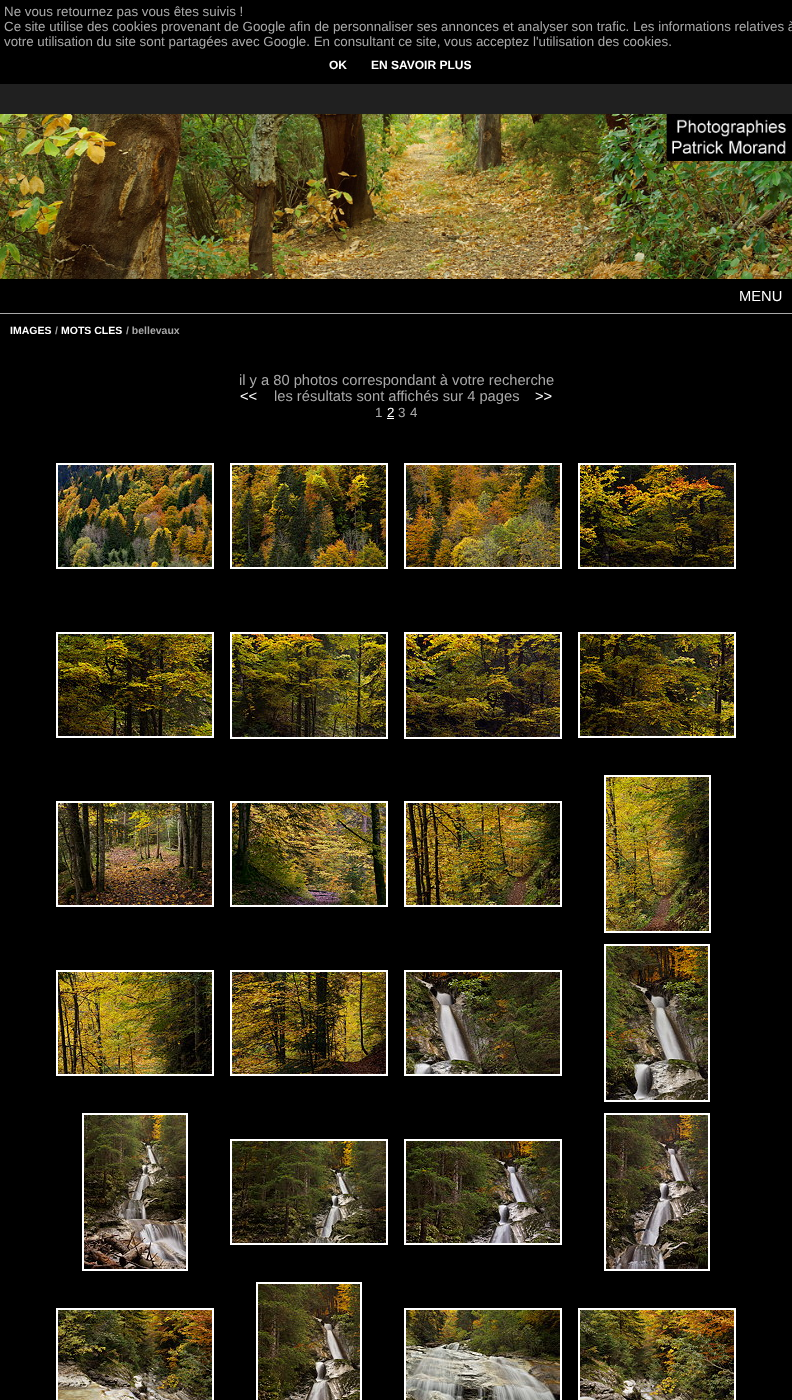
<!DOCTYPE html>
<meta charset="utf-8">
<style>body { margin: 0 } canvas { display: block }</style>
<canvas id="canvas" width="792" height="1400"></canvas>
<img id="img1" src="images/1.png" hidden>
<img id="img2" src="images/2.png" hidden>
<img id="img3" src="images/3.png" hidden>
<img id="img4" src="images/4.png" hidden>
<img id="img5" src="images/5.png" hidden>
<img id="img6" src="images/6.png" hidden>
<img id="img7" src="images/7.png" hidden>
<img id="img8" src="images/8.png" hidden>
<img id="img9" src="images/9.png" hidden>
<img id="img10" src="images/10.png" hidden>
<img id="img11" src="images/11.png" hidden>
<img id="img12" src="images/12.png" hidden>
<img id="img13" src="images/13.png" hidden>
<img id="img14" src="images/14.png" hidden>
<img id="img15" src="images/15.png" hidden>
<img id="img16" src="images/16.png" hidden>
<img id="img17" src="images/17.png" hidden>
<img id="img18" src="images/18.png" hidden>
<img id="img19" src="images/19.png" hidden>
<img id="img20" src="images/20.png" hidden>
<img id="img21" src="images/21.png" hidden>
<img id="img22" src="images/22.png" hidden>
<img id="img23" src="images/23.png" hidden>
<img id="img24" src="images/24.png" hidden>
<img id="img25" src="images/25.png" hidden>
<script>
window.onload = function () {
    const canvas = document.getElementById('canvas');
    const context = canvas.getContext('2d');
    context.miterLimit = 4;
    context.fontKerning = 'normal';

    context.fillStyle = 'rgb(32, 32, 32)';
    context.fillRect(0, 0, 792, 1400);
    context.fillStyle = 'rgb(0, 0, 0)';
    context.fillRect(0, 0, 792, 84);
    context.drawImage(document.getElementById('img1'), 0, 114, 792, 165);
    context.fillRect(0, 279, 792, 34);
    context.fillStyle = 'rgb(169, 169, 169)';
    context.fillRect(0, 313, 792, 1);
    context.fillStyle = 'rgb(0, 0, 0)';
    context.fillRect(0, 314, 792, 1086);
    context.fillStyle = 'rgb(255, 255, 255)';
    context.fillRect(387, 418, 7, 1);
    context.strokeStyle = 'rgb(255, 255, 255)';
    context.lineWidth = 2;
    context.strokeRect(57, 464, 156, 104);
    context.drawImage(document.getElementById('img2'), 58, 465, 154, 102);
    context.strokeRect(231, 464, 156, 104);
    context.drawImage(document.getElementById('img3'), 232, 465, 154, 102);
    context.strokeRect(405, 464, 156, 104);
    context.drawImage(document.getElementById('img4'), 406, 465, 154, 102);
    context.strokeRect(579, 464, 156, 104);
    context.drawImage(document.getElementById('img5'), 580, 465, 154, 102);
    context.strokeRect(57, 633, 156, 104);
    context.drawImage(document.getElementById('img6'), 58, 634, 154, 102);
    context.strokeRect(231, 633, 156, 105);
    context.drawImage(document.getElementById('img7'), 232, 634, 154, 103);
    context.strokeRect(405, 633, 156, 105);
    context.drawImage(document.getElementById('img8'), 406, 634, 154, 103);
    context.strokeRect(579, 633, 156, 104);
    context.drawImage(document.getElementById('img9'), 580, 634, 154, 102);
    context.strokeRect(57, 802, 156, 104);
    context.drawImage(document.getElementById('img10'), 58, 803, 154, 102);
    context.strokeRect(231, 802, 156, 104);
    context.drawImage(document.getElementById('img11'), 232, 803, 154, 102);
    context.strokeRect(405, 802, 156, 104);
    context.drawImage(document.getElementById('img12'), 406, 803, 154, 102);
    context.strokeRect(605, 776, 105, 156);
    context.drawImage(document.getElementById('img13'), 606, 777, 103, 154);
    context.strokeRect(57, 971, 156, 104);
    context.drawImage(document.getElementById('img14'), 58, 972, 154, 102);
    context.strokeRect(231, 971, 156, 104);
    context.drawImage(document.getElementById('img15'), 232, 972, 154, 102);
    context.strokeRect(405, 971, 156, 104);
    context.drawImage(document.getElementById('img16'), 406, 972, 154, 102);
    context.strokeRect(605, 945, 104, 156);
    context.drawImage(document.getElementById('img17'), 606, 946, 102, 154);
    context.strokeRect(83, 1114, 104, 156);
    context.drawImage(document.getElementById('img18'), 84, 1115, 102, 154);
    context.strokeRect(231, 1140, 156, 104);
    context.drawImage(document.getElementById('img19'), 232, 1141, 154, 102);
    context.strokeRect(405, 1140, 156, 104);
    context.drawImage(document.getElementById('img20'), 406, 1141, 154, 102);
    context.strokeRect(605, 1114, 104, 156);
    context.drawImage(document.getElementById('img21'), 606, 1115, 102, 154);
    context.strokeRect(57, 1309, 156, 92);
    context.drawImage(document.getElementById('img22'), 58, 1310, 154, 90);
    context.strokeRect(257, 1283, 104, 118);
    context.drawImage(document.getElementById('img23'), 258, 1284, 102, 116);
    context.strokeRect(405, 1309, 156, 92);
    context.drawImage(document.getElementById('img24'), 406, 1310, 154, 90);
    context.strokeRect(579, 1309, 156, 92);
    context.drawImage(document.getElementById('img25'), 580, 1310, 154, 90);
    context.font = '13.33px Liberation Sans';
    context.fillStyle = 'rgb(169, 169, 169)';
    context.fillText('Ne vous retournez pas vous êtes suivis !', 4, 16);
    context.fillText('Ce site utilise des cookies provenant de Google afin de personnaliser ses annonces et analyser son trafic. Les informations relatives à', 4, 31);
    context.fillText('votre utilisation du site sont partagées avec Google. En consultant ce site, vous acceptez l\'utilisation des cookies.', 4, 46);
    context.font = 'bold 12px Liberation Sans';
    context.fillStyle = 'rgb(255, 255, 255)';
    context.fillText('OK', 329, 69);
    context.fillText('EN SAVOIR PLUS', 371, 69);
    context.font = '14.7px Liberation Sans';
    context.fillText('MENU', 739, 301);
    context.font = 'bold 10.5px Liberation Sans';
    context.fillText('IMAGES', 10, 334);
    context.fillStyle = 'rgb(169, 169, 169)';
    context.fillText('/', 55, 334);
    context.fillStyle = 'rgb(255, 255, 255)';
    context.fillText('MOTS CLES', 61, 334);
    context.fillStyle = 'rgb(169, 169, 169)';
    context.fillText('/ bellevaux', 126, 334);
    context.font = '14.7px Liberation Sans';
    context.fillText('il y a 80 photos correspondant à votre recherche', 239, 385);
    context.fillStyle = 'rgb(255, 255, 255)';
    context.fillText('<<', 240, 401);
    context.fillStyle = 'rgb(169, 169, 169)';
    context.fillText('les résultats sont affichés sur 4 pages', 274, 401);
    context.fillStyle = 'rgb(255, 255, 255)';
    context.fillText('>>', 535, 401);
    context.font = '13.33px Liberation Sans';
    context.fillStyle = 'rgb(169, 169, 169)';
    context.fillText('1', 375, 417);
    context.fillStyle = 'rgb(255, 255, 255)';
    context.fillText('2', 387, 417);
    context.fillStyle = 'rgb(169, 169, 169)';
    context.fillText('3', 398, 417);
    context.fillText('4', 410, 417);
};
</script>
